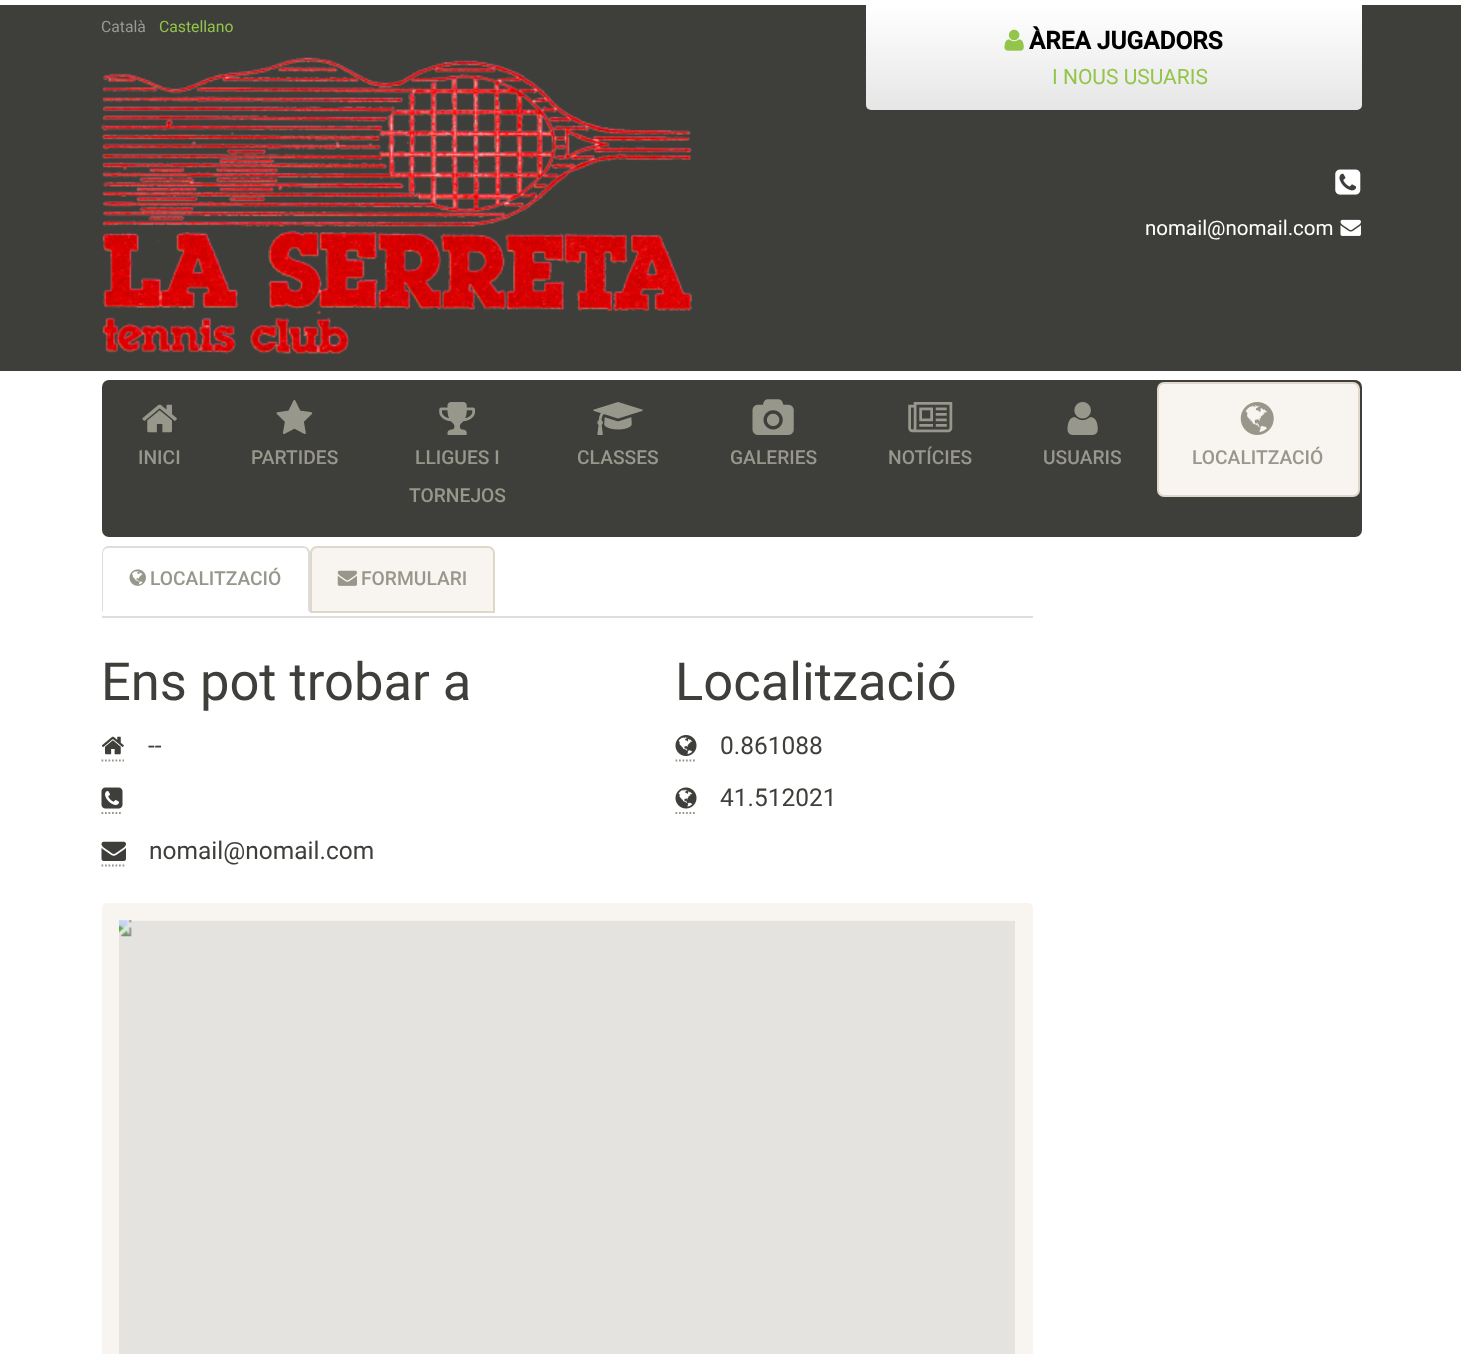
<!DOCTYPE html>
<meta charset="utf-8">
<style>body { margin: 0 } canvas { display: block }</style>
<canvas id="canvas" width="1461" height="1354"></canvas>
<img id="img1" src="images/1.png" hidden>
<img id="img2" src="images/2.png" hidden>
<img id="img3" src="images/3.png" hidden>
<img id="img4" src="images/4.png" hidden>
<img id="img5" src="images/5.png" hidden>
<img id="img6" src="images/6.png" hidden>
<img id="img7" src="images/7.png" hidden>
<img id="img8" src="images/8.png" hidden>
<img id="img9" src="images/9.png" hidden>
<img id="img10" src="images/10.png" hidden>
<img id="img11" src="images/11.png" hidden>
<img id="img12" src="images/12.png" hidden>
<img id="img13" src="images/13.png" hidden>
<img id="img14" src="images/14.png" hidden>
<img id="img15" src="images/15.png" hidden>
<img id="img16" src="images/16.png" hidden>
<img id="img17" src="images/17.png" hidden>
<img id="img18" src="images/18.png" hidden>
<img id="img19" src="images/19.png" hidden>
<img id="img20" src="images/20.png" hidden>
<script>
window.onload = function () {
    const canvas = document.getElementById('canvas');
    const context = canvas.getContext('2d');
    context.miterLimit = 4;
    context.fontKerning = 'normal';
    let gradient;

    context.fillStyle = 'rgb(255, 255, 255)';
    context.fillRect(0, 0, 1461, 1354);
    context.fillStyle = 'rgb(62, 63, 58)';
    context.fillRect(0, 5, 1461, 366);
    context.drawImage(document.getElementById('img1'), 101, 57, 591, 297);
    gradient = context.createLinearGradient(1114, 5.2, 1114, 110);
    gradient.addColorStop(0, 'rgb(255, 255, 255)');
    gradient.addColorStop(1, 'rgb(230, 230, 230)');
    context.fillStyle = gradient;
    context.beginPath();
    context.roundRect(866, 5, 496, 105, [0, 0, 5, 5]);
    context.fill();
    context.drawImage(document.getElementById('img2'), 1004, 29, 20, 22);
    context.drawImage(document.getElementById('img3'), 1335, 169, 26, 26);
    context.drawImage(document.getElementById('img4'), 1340, 219, 21, 17);
    context.fillStyle = 'rgb(62, 63, 58)';
    context.beginPath();
    context.roundRect(103, 381, 1258, 155, 6);
    context.fill();
    context.strokeStyle = 'rgb(62, 63, 58)';
    context.lineWidth = 2;
    context.stroke();
    context.drawImage(document.getElementById('img5'), 142, 404, 35, 29);
    context.drawImage(document.getElementById('img6'), 276, 400, 37, 34);
    context.drawImage(document.getElementById('img7'), 439, 402, 36, 33);
    context.drawImage(document.getElementById('img8'), 593, 402, 50, 33);
    context.drawImage(document.getElementById('img9'), 752, 399, 42, 36);
    context.drawImage(document.getElementById('img10'), 908, 402, 45, 31);
    context.drawImage(document.getElementById('img11'), 1067, 402, 31, 33);
    context.fillStyle = 'rgb(248, 245, 240)';
    context.beginPath();
    context.roundRect(1158, 383, 201, 113, 6);
    context.fill();
    context.strokeStyle = 'rgb(223, 215, 202)';
    context.stroke();
    context.drawImage(document.getElementById('img12'), 1240, 402, 34, 33);
    context.fillStyle = 'rgb(221, 221, 221)';
    context.beginPath();
    context.moveTo(108, 546);
    context.bezierCurveTo(106, 546, 105, 547, 104, 548);
    context.lineTo(105, 549);
    context.lineTo(108, 548);
    context.lineTo(303, 548);
    context.bezierCurveTo(304, 548, 306, 548, 306, 549);
    context.lineTo(308, 548);
    context.bezierCurveTo(307, 547, 305, 546, 303, 546);
    context.closePath();
    context.fill();
    context.beginPath();
    context.moveTo(310, 612);
    context.lineTo(308, 611);
    context.lineTo(308, 553);
    context.bezierCurveTo(308, 551, 307, 550, 306, 549);
    context.lineTo(308, 548);
    context.lineTo(310, 551);
    context.closePath();
    context.fill();
    context.beginPath();
    context.moveTo(104, 548);
    context.bezierCurveTo(103, 549, 102, 551, 102, 553);
    context.lineTo(102, 612);
    context.lineTo(103, 611);
    context.lineTo(103, 552);
    context.lineTo(105, 549);
    context.closePath();
    context.fill();
    context.drawImage(document.getElementById('img13'), 129, 569, 17, 17);
    context.fillStyle = 'rgb(248, 245, 240)';
    context.beginPath();
    context.roundRect(311, 547, 183, 65, [6, 6, 0, 0]);
    context.fill();
    context.stroke();
    context.drawImage(document.getElementById('img14'), 337, 570, 20, 16);
    context.fillStyle = 'rgb(221, 221, 221)';
    context.fillRect(102, 616, 931, 2);
    context.beginPath();
    context.moveTo(101.5, 760.5);
    context.lineTo(124, 760.5);
    context.strokeStyle = 'rgb(152, 151, 139)';
    context.lineWidth = 1.8;
    context.setLineDash([1.75, 1.75]);
    context.stroke();
    context.drawImage(document.getElementById('img15'), 101, 736, 23, 19);
    context.beginPath();
    context.moveTo(101.5, 813);
    context.lineTo(122.5, 813);
    context.stroke();
    context.drawImage(document.getElementById('img16'), 101, 787, 22, 22);
    context.beginPath();
    context.moveTo(101.5, 865.5);
    context.lineTo(126, 865.5);
    context.stroke();
    context.drawImage(document.getElementById('img17'), 101, 841, 25, 20);
    context.beginPath();
    context.moveTo(675.5, 760.5);
    context.lineTo(696.5, 760.5);
    context.stroke();
    context.drawImage(document.getElementById('img18'), 675, 735, 22, 21);
    context.beginPath();
    context.moveTo(675.5, 813);
    context.lineTo(696.5, 813);
    context.stroke();
    context.drawImage(document.getElementById('img19'), 675, 787, 22, 22);
    context.fillStyle = 'rgb(248, 245, 240)';
    context.beginPath();
    context.roundRect(102, 903, 931, 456, 5);
    context.fill();
    context.drawImage(document.getElementById('img20'), 119, 920, 896, 434);
    context.font = '15.75px Roboto';
    context.fillStyle = 'rgb(153, 153, 153)';
    context.fillText('Català', 101, 32);
    context.fillStyle = 'rgb(147, 197, 75)';
    context.fillText('Castellano', 159, 32);
    context.font = 'bold 24.5px Roboto';
    context.fillStyle = 'rgb(0, 0, 0)';
    context.fillText('ÀREA JUGADORS', 1029, 49);
    context.font = '21px Roboto';
    context.fillStyle = 'rgb(147, 197, 75)';
    context.fillText('I NOUS USUARIS', 1052, 84);
    context.font = '20.5px Roboto';
    context.fillStyle = 'rgb(255, 255, 255)';
    context.fillText('nomail@nomail.com', 1145, 235);
    context.font = '500 19.25px Roboto';
    context.fillStyle = 'rgb(152, 151, 139)';
    context.fillText('INICI', 138, 464);
    context.fillText('PARTIDES', 251, 464);
    context.fillText('LLIGUES I', 415, 464);
    context.fillText('TORNEJOS', 409, 502);
    context.fillText('CLASSES', 577, 464);
    context.fillText('GALERIES', 730, 464);
    context.fillText('NOTÍCIES', 888, 464);
    context.fillText('USUARIS', 1043, 464);
    context.fillText('LOCALITZACIÓ', 1192, 464);
    context.fillText('LOCALITZACIÓ', 150, 585);
    context.fillText('FORMULARI', 361, 585);
    context.font = '52.5px Roboto';
    context.fillStyle = 'rgb(62, 63, 58)';
    context.fillText('Ens pot trobar a', 101, 700);
    context.font = '24.5px Roboto';
    context.fillText('--', 148, 754);
    context.fillText('nomail@nomail.com', 149, 859);
    context.font = '52.5px Roboto';
    context.fillText('Localització', 675, 700);
    context.font = '24.5px Roboto';
    context.fillText('0.861088', 720, 754);
    context.fillText('41.512021', 720, 806);
};
</script>
